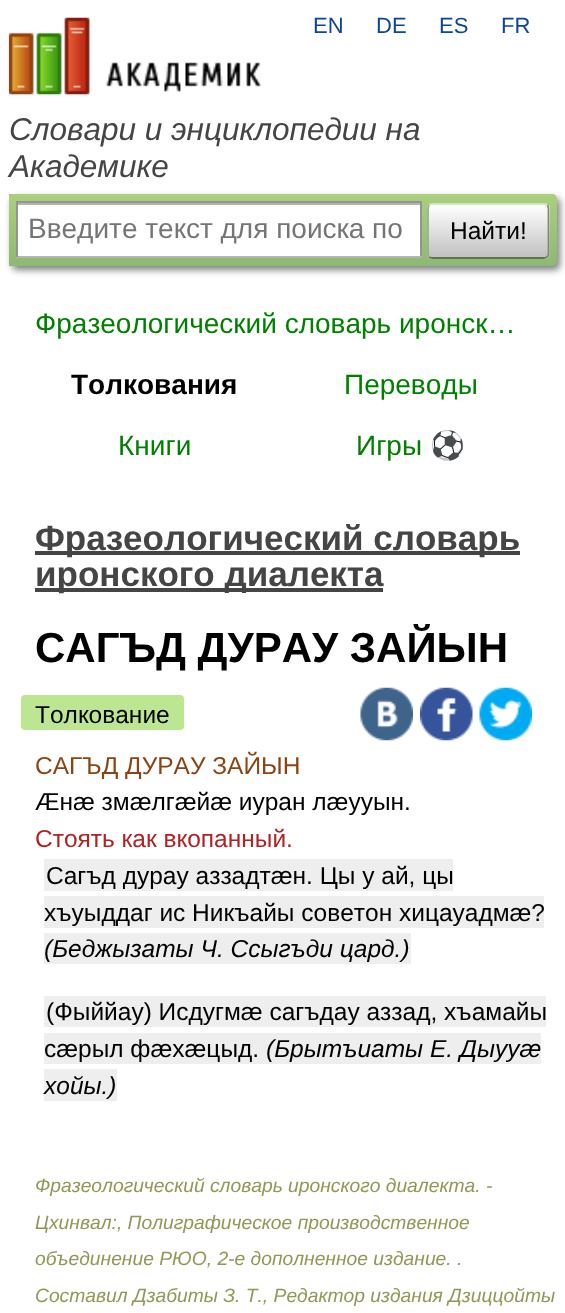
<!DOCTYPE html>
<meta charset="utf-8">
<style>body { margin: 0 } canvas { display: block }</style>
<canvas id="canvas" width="565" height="1313"></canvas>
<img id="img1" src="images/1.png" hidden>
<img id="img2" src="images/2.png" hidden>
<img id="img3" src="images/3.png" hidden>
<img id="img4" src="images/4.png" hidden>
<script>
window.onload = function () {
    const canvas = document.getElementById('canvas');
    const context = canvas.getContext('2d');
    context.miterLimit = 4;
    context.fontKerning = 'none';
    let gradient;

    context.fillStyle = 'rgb(255, 255, 255)';
    context.fillRect(0, 0, 565, 1313);
    context.drawImage(document.getElementById('img1'), 8, 17, 253, 78);
    context.fillStyle = 'rgba(0, 0, 0, 0.5)';
    context.filter = 'blur(3.5px)';
    context.beginPath();
    context.roundRect(12, 198, 548, 72, 5);
    context.fill();
    context.filter = 'none';
    gradient = context.createLinearGradient(283, 194, 283, 266);
    gradient.addColorStop(0, 'rgb(171, 207, 126)');
    gradient.addColorStop(1, 'rgb(142, 184, 116)');
    context.fillStyle = gradient;
    context.beginPath();
    context.roundRect(9, 194, 548, 72, [0, 5, 5, 0]);
    context.fill();
    context.fillStyle = 'rgb(255, 255, 255)';
    context.fillRect(18, 205, 402, 51);
    context.fillStyle = 'rgb(179, 179, 179)';
    context.fillRect(18, 203, 402, 2);
    context.fillStyle = 'rgb(148, 148, 148)';
    context.fillRect(16, 201, 406, 2);
    context.fillRect(420, 201, 2, 56);
    context.fillStyle = 'rgb(180, 180, 180)';
    context.fillRect(16, 256, 406, 2);
    context.fillStyle = 'rgb(148, 148, 148)';
    context.fillRect(16, 201, 2, 56);
    context.save();
    context.beginPath();
    context.roundRect(427, 203, 123, 56, 5);
    context.clip();
    gradient = context.createLinearGradient(488, 152, 488, 205);
    gradient.addColorStop(0, 'rgb(255, 255, 255)');
    gradient.addColorStop(1, 'rgb(193, 193, 193)');
    context.fillStyle = gradient;
    context.fillRect(427, 203, 123, 2);
    gradient = context.createLinearGradient(488, 205, 488, 257);
    gradient.addColorStop(0, 'rgb(255, 255, 255)');
    gradient.addColorStop(1, 'rgb(193, 193, 193)');
    context.fillStyle = gradient;
    context.fillRect(427, 205, 123, 52);
    gradient = context.createLinearGradient(488, 257, 488, 310);
    gradient.addColorStop(0, 'rgb(255, 255, 255)');
    gradient.addColorStop(1, 'rgb(193, 193, 193)');
    context.fillStyle = gradient;
    context.fillRect(427, 257, 123, 2);
    context.restore();
    context.beginPath();
    context.moveTo(429, 205);
    context.bezierCurveTo(430, 204.5, 431, 204, 432, 204);
    context.lineTo(544, 204);
    context.bezierCurveTo(545.5, 204, 546.5, 204.5, 547.5, 205);
    context.strokeStyle = 'rgb(209, 228, 188)';
    context.lineWidth = 1.8;
    context.stroke();
    context.beginPath();
    context.moveTo(547.5, 205);
    context.bezierCurveTo(548, 206, 548.5, 207, 548.5, 208);
    context.lineTo(548.5, 254);
    context.bezierCurveTo(548.5, 255, 548, 256, 547.5, 257);
    context.strokeStyle = 'rgb(122, 142, 105)';
    context.stroke();
    context.beginPath();
    context.moveTo(547.5, 257);
    context.bezierCurveTo(546.5, 257.5, 545.5, 258, 544, 258);
    context.lineTo(432, 258);
    context.bezierCurveTo(431, 258, 430, 257.5, 429, 257);
    context.strokeStyle = 'rgb(93, 114, 80)';
    context.stroke();
    context.beginPath();
    context.moveTo(429, 257);
    context.bezierCurveTo(428.5, 256, 428, 255, 428, 254);
    context.lineTo(428, 208);
    context.bezierCurveTo(428, 207, 428.5, 206, 429, 205);
    context.strokeStyle = 'rgb(154, 174, 137)';
    context.stroke();
    context.fillStyle = 'rgb(69, 69, 69)';
    context.fillRect(35, 551, 485, 4);
    context.fillRect(35, 588, 348, 4);
    context.fillStyle = 'rgb(189, 230, 147)';
    context.beginPath();
    context.roundRect(21, 695, 163, 35, 4);
    context.fill();
    context.drawImage(document.getElementById('img2'), 360, 687, 53, 54);
    context.drawImage(document.getElementById('img3'), 420, 687, 53, 54);
    context.drawImage(document.getElementById('img4'), 479, 687, 53, 54);
    context.fillStyle = 'rgb(238, 238, 238)';
    context.fillRect(44, 859, 409, 32);
    context.fillRect(44, 896, 500, 32);
    context.fillRect(44, 933, 367, 31);
    context.fillRect(44, 996, 502, 31);
    context.fillRect(44, 1033, 497, 31);
    context.fillRect(44, 1069, 73, 32);
    context.font = '22px Liberation Sans';
    context.fillStyle = 'rgb(13, 68, 160)';
    context.fillText('EN', 313, 33);
    context.fillText('DE', 376, 33);
    context.fillText('ES', 439, 33);
    context.fillText('FR', 501, 33);
    context.font = 'italic 31.5px Liberation Sans';
    context.fillStyle = 'rgb(69, 69, 69)';
    context.fillText('Словари и энциклопедии на', 9, 140);
    context.fillText('Академике', 9, 177);
    context.font = '28px Liberation Sans';
    context.fillStyle = 'rgb(117, 117, 117)';
    context.fillText('Введите текст для поиска по', 28, 238);
    context.font = '24.5px Liberation Sans';
    context.fillStyle = 'rgb(0, 0, 0)';
    context.fillText('Найти!', 450, 239);
    context.font = '28px Liberation Sans';
    context.fillStyle = 'rgb(0, 128, 0)';
    context.fillText('Фразеологический словарь иронск…', 35, 333);
    context.font = 'bold 28px Liberation Sans';
    context.fillStyle = 'rgb(0, 0, 0)';
    context.fillText('Толкования', 71, 394);
    context.font = '28px Liberation Sans';
    context.fillStyle = 'rgb(0, 128, 0)';
    context.fillText('Переводы', 344, 394);
    context.fillText('Книги', 118, 455);
    context.fillText('Игры', 356, 455);
    context.font = '28px Noto Color Emoji';
    context.fillText('⚽', 430, 455);
    context.font = 'bold 35px Liberation Sans';
    context.fillStyle = 'rgb(69, 69, 69)';
    context.fillText('Фразеологический словарь', 35, 550);
    context.fillText('иронского диалекта', 35, 586);
    context.font = 'bold 42px Liberation Sans';
    context.fillStyle = 'rgb(0, 0, 0)';
    context.fillText('САГЪД ДУРАУ ЗАЙЫН', 35, 662);
    context.font = '24.5px Liberation Sans';
    context.fillText('Толкование', 35, 723);
    context.fillStyle = 'rgb(139, 69, 19)';
    context.fillText('САГЪД ДУРАУ ЗАЙЫН', 35, 774);
    context.fillStyle = 'rgb(0, 0, 0)';
    context.fillText('Æнæ змæлгæйæ иуран лæууын.', 35, 810);
    context.fillStyle = 'rgb(178, 34, 34)';
    context.fillText('Стоять как вкопанный.', 35, 847);
    context.fillStyle = 'rgb(0, 0, 0)';
    context.fillText('Сагъд дурау аззадтæн. Цы у ай, цы', 46, 884);
    context.fillText('хъуыддаг ис Никъайы советон хицауадмæ?', 44, 921);
    context.font = 'italic 24.5px Liberation Sans';
    context.fillText('(Беджызаты Ч. Ссыгъди цард.)', 44, 957);
    context.font = '24.5px Liberation Sans';
    context.fillText('(Фыййау) Исдугмæ сагъдау аззад, хъамайы', 46, 1020);
    context.fillText('сæрыл фæхæцыд.', 44, 1057);
    context.font = 'italic 24.5px Liberation Sans';
    context.fillText('(Брытъиаты Е. Дыууæ', 266, 1057);
    context.fillText('хойы.)', 44, 1094);
    context.font = 'italic 19.25px Liberation Sans';
    context.fillStyle = 'rgb(147, 151, 86)';
    context.fillText('Фразеологический словарь иронского диалекта. -', 35, 1192);
    context.fillText('Цхинвал:, Полиграфическое производственное', 35, 1229);
    context.fillText('объединение РЮО, 2-е дополненное издание. .', 35, 1265);
    context.fillText('Составил Дзабиты З. Т., Редактор издания Дзиццойты', 35, 1302);
};
</script>
